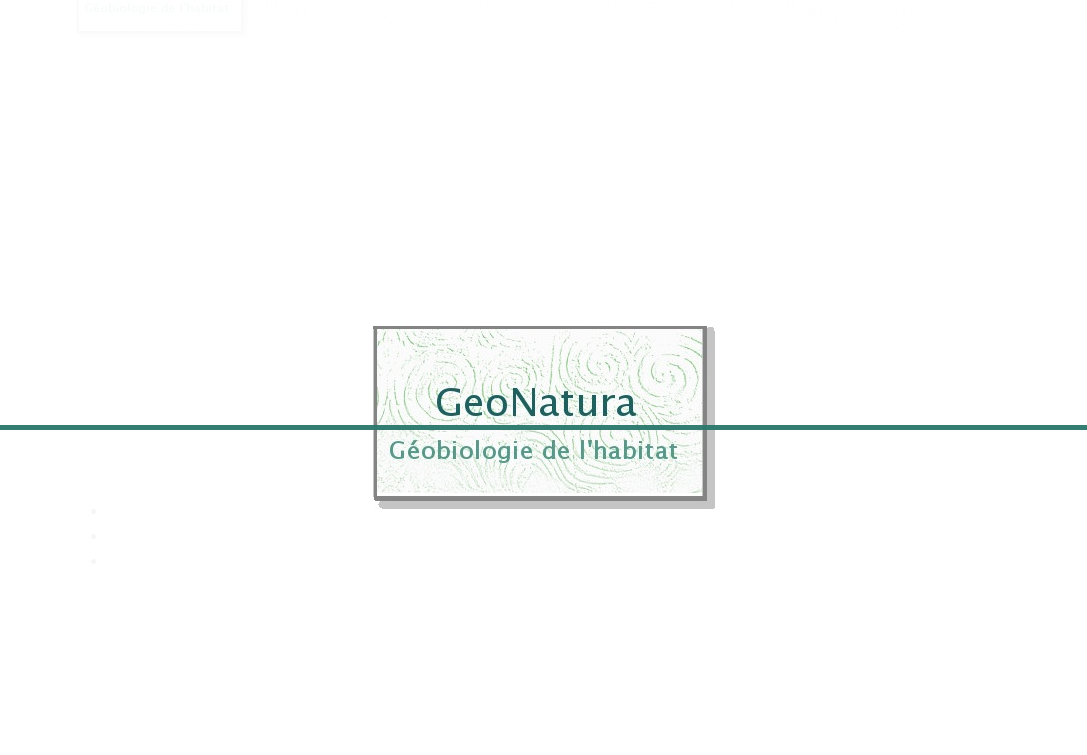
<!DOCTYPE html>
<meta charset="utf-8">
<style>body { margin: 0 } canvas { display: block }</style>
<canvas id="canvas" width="1087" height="755"></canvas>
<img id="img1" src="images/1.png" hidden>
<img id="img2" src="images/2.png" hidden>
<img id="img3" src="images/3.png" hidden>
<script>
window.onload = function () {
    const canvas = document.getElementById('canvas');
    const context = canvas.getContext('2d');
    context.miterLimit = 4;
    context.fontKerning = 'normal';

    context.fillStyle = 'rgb(255, 255, 255)';
    context.fillRect(0, 0, 1087, 755);
    context.drawImage(document.getElementById('img1'), 0, 0, 1087, 35);
    context.drawImage(document.getElementById('img2'), 76, 0, 172, 38);
    context.drawImage(document.getElementById('img3'), 372, 325, 344, 185);
    context.fillStyle = 'rgba(43, 120, 108, 0.96)';
    context.fillRect(0, 425, 1087, 5);
    context.fillStyle = 'rgb(246, 246, 246)';
    context.beginPath();
    context.arc(93.5, 511.5, 2.5, 0, 2 * Math.PI);
    context.fill();
    context.beginPath();
    context.arc(93.5, 536.5, 2.5, 0, 2 * Math.PI);
    context.fill();
    context.beginPath();
    context.arc(93.5, 561.5, 2.5, 0, 2 * Math.PI);
    context.fill();
};
</script>
